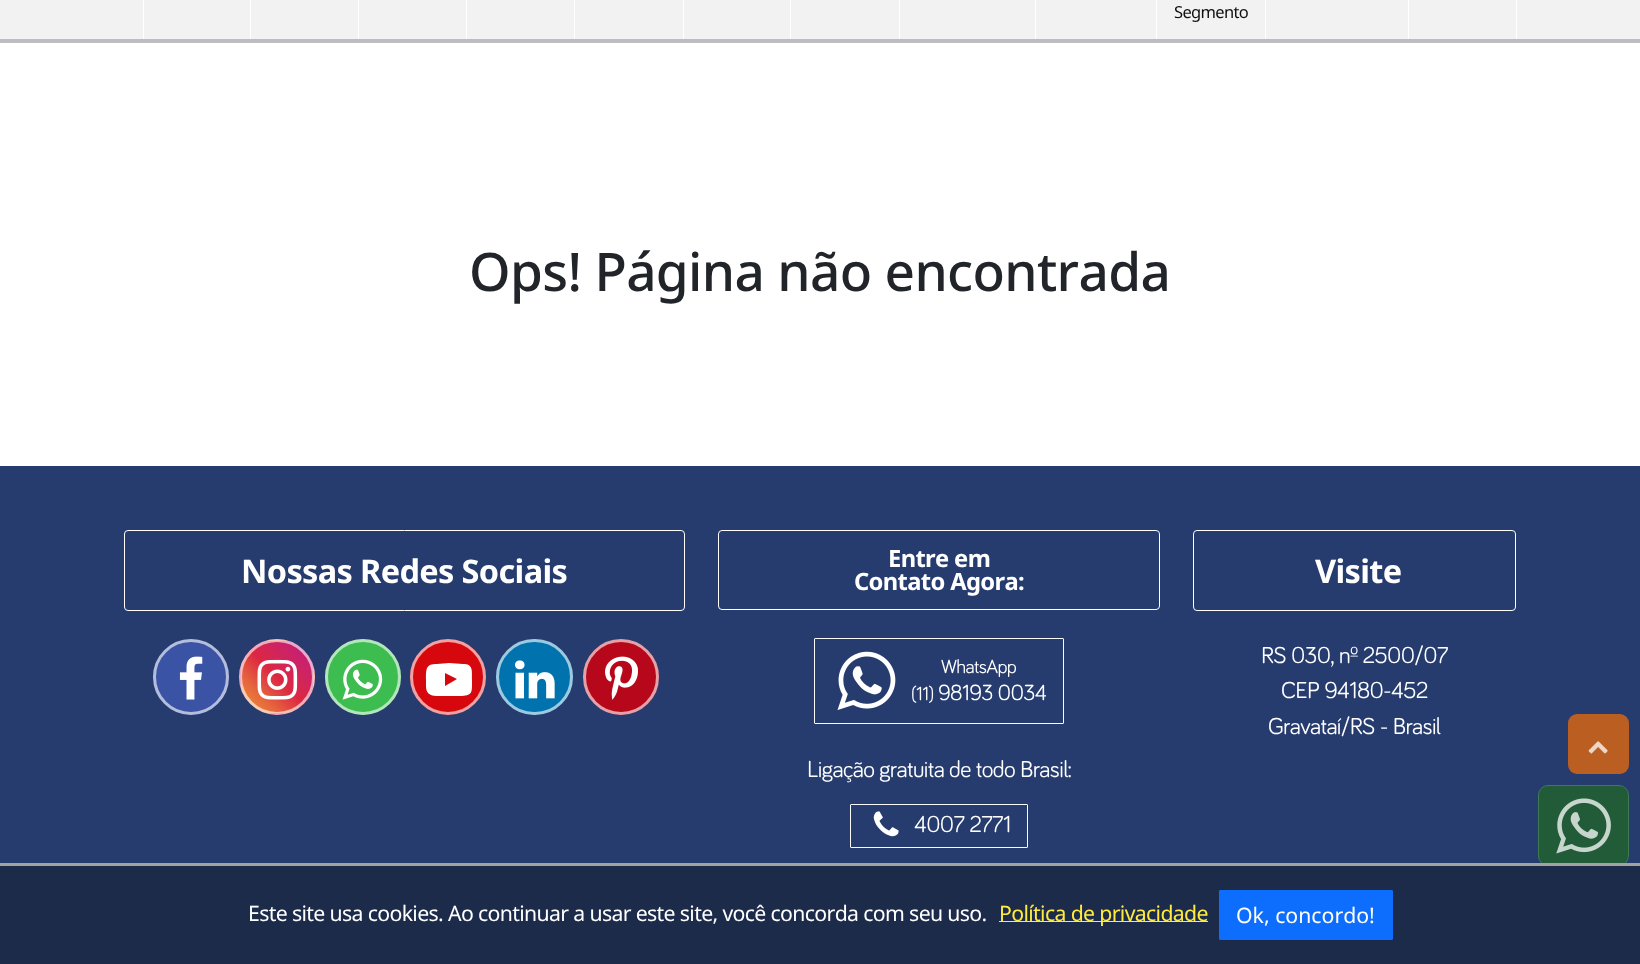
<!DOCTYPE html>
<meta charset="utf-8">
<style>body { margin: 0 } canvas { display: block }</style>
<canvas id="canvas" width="1640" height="964"></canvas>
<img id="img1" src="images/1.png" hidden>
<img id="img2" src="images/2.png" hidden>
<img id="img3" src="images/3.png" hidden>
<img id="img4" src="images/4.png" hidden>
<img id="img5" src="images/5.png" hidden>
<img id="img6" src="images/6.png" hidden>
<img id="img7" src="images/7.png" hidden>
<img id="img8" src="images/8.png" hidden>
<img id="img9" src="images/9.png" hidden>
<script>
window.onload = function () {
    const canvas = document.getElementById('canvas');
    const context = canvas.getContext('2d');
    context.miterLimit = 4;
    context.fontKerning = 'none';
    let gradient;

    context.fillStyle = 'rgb(255, 255, 255)';
    context.fillRect(0, 0, 1640, 964);
    context.fillStyle = 'rgb(242, 242, 242)';
    context.fillRect(0, 0, 1640, 39);
    context.fillStyle = 'rgb(187, 189, 192)';
    context.fillRect(0, 39, 1640, 4);
    context.fillStyle = 'rgb(255, 255, 255)';
    context.fillRect(143, 0, 1, 39);
    context.fillRect(250, 0, 1, 39);
    context.fillRect(358, 0, 1, 39);
    context.fillRect(466, 0, 1, 39);
    context.fillRect(574, 0, 1, 39);
    context.fillRect(683, 0, 1, 39);
    context.fillRect(790, 0, 1, 39);
    context.fillRect(899, 0, 1, 39);
    context.fillRect(1035, 0, 1, 39);
    context.fillRect(1156, 0, 1, 39);
    context.fillRect(1265, 0, 1, 39);
    context.fillRect(1408, 0, 1, 39);
    context.fillRect(1516, 0, 1, 39);
    context.fillStyle = 'rgb(38, 59, 110)';
    context.fillRect(0, 466, 1640, 397);
    context.beginPath();
    context.roundRect(124.5, 530.5, 560, 80, 3.5);
    context.strokeStyle = 'rgb(255, 255, 255)';
    context.stroke();
    context.fillStyle = 'rgb(59, 83, 164)';
    context.beginPath();
    context.arc(191, 677, 38, 0, 2 * Math.PI);
    context.fill();
    context.beginPath();
    context.arc(191, 677, 36.5, 0, 2 * Math.PI);
    context.strokeStyle = 'rgba(255, 255, 255, 0.62)';
    context.lineWidth = 3;
    context.stroke();
    context.drawImage(document.getElementById('img1'), 179, 656, 24, 44);
    context.save();
    context.beginPath();
    context.roundRect(239, 639, 76, 76, 38);
    context.clip();
    gradient = context.createLinearGradient(241, 641, 313, 570);
    gradient.addColorStop(0, 'rgb(240, 148, 51)');
    gradient.addColorStop(0.25, 'rgb(230, 104, 60)');
    gradient.addColorStop(0.5, 'rgb(220, 39, 67)');
    gradient.addColorStop(0.75, 'rgb(204, 35, 102)');
    gradient.addColorStop(1, 'rgb(188, 24, 136)');
    context.fillStyle = gradient;
    context.fillRect(265, 639, 24, 2);
    gradient = context.createLinearGradient(170, 713, 241, 641);
    gradient.addColorStop(0, 'rgb(240, 148, 51)');
    gradient.addColorStop(0.25, 'rgb(230, 104, 60)');
    gradient.addColorStop(0.5, 'rgb(220, 39, 67)');
    gradient.addColorStop(0.75, 'rgb(204, 35, 102)');
    gradient.addColorStop(1, 'rgb(188, 24, 136)');
    context.fillStyle = gradient;
    context.fillRect(239, 665, 2, 24);
    gradient = context.createLinearGradient(241, 713, 313, 641);
    gradient.addColorStop(0, 'rgb(240, 148, 51)');
    gradient.addColorStop(0.25, 'rgb(230, 104, 60)');
    gradient.addColorStop(0.5, 'rgb(220, 39, 67)');
    gradient.addColorStop(0.75, 'rgb(204, 35, 102)');
    gradient.addColorStop(1, 'rgb(188, 24, 136)');
    context.fillStyle = gradient;
    context.fillRect(241, 641, 72, 72);
    gradient = context.createLinearGradient(313, 713, 384, 641);
    gradient.addColorStop(0, 'rgb(240, 148, 51)');
    gradient.addColorStop(0.25, 'rgb(230, 104, 60)');
    gradient.addColorStop(0.5, 'rgb(220, 39, 67)');
    gradient.addColorStop(0.75, 'rgb(204, 35, 102)');
    gradient.addColorStop(1, 'rgb(188, 24, 136)');
    context.fillStyle = gradient;
    context.fillRect(313, 665, 2, 24);
    gradient = context.createLinearGradient(241, 784, 313, 713);
    gradient.addColorStop(0, 'rgb(240, 148, 51)');
    gradient.addColorStop(0.25, 'rgb(230, 104, 60)');
    gradient.addColorStop(0.5, 'rgb(220, 39, 67)');
    gradient.addColorStop(0.75, 'rgb(204, 35, 102)');
    gradient.addColorStop(1, 'rgb(188, 24, 136)');
    context.fillStyle = gradient;
    context.fillRect(265, 713, 24, 2);
    context.restore();
    context.beginPath();
    context.arc(277, 677, 36.5, 0, 2 * Math.PI);
    context.stroke();
    context.drawImage(document.getElementById('img2'), 257, 659, 41, 41);
    context.fillStyle = 'rgb(61, 188, 80)';
    context.beginPath();
    context.arc(363, 677, 38, 0, 2 * Math.PI);
    context.fill();
    context.beginPath();
    context.arc(363, 677, 36.5, 0, 2 * Math.PI);
    context.stroke();
    context.drawImage(document.getElementById('img3'), 342, 659, 41, 41);
    context.fillStyle = 'rgb(215, 8, 13)';
    context.beginPath();
    context.arc(448, 677, 38, 0, 2 * Math.PI);
    context.fill();
    context.beginPath();
    context.arc(448, 677, 36.5, 0, 2 * Math.PI);
    context.stroke();
    context.fillStyle = 'rgb(255, 255, 255)';
    context.beginPath();
    context.moveTo(445, 686);
    context.lineTo(457, 679);
    context.lineTo(445, 673);
    context.closePath();
    context.moveTo(449, 663);
    context.lineTo(463, 664);
    context.bezierCurveTo(473, 664, 472, 670, 472, 680);
    context.bezierCurveTo(472, 692, 473, 695, 462, 696);
    context.lineTo(436, 696);
    context.bezierCurveTo(425, 695, 426, 689, 426, 680);
    context.bezierCurveTo(426, 668, 426, 664, 437, 664);
    context.closePath();
    context.fill();
    context.fillStyle = 'rgb(0, 115, 175)';
    context.beginPath();
    context.roundRect(496, 639, 77, 76, 38);
    context.fill();
    context.beginPath();
    context.roundRect(497.5, 640.5, 74, 73, 36.5);
    context.stroke();
    context.drawImage(document.getElementById('img4'), 515, 660, 40, 39);
    context.fillStyle = 'rgb(183, 8, 27)';
    context.beginPath();
    context.arc(621, 677, 38, 0, 2 * Math.PI);
    context.fill();
    context.beginPath();
    context.arc(621, 677, 36.5, 0, 2 * Math.PI);
    context.stroke();
    context.drawImage(document.getElementById('img5'), 605, 656, 33, 44);
    context.beginPath();
    context.roundRect(718.5, 530.5, 441, 79, 3.5);
    context.strokeStyle = 'rgb(255, 255, 255)';
    context.lineWidth = 1;
    context.stroke();
    context.beginPath();
    context.roundRect(814.5, 638.5, 249, 85, 0.5);
    context.strokeStyle = 'rgb(248, 249, 250)';
    context.stroke();
    context.drawImage(document.getElementById('img6'), 837, 651, 59, 59);
    context.beginPath();
    context.roundRect(850.5, 804.5, 177, 43, 0.5);
    context.stroke();
    context.drawImage(document.getElementById('img7'), 873, 811, 26, 26);
    context.beginPath();
    context.roundRect(1193.5, 530.5, 322, 80, 3.5);
    context.strokeStyle = 'rgb(255, 255, 255)';
    context.stroke();
    context.fillStyle = 'rgb(186, 94, 34)';
    context.beginPath();
    context.roundRect(1568, 714, 61, 60, 9);
    context.fill();
    context.drawImage(document.getElementById('img8'), 1588, 741, 20, 13);
    context.fillStyle = 'rgb(33, 91, 55)';
    context.beginPath();
    context.roundRect(1538.5, 785.5, 90, 80, 9.5);
    context.fill();
    context.strokeStyle = 'rgb(61, 123, 83)';
    context.stroke();
    context.drawImage(document.getElementById('img9'), 1556, 798, 55, 56);
    context.fillStyle = 'rgb(29, 43, 75)';
    context.fillRect(0, 866, 1640, 98);
    context.fillStyle = 'rgb(162, 162, 162)';
    context.fillRect(0, 863, 1640, 3);
    context.fillStyle = 'rgb(255, 235, 59)';
    context.fillRect(999, 921, 209, 1);
    context.fillStyle = 'rgb(13, 110, 253)';
    context.beginPath();
    context.roundRect(1219.5, 890.5, 173, 49, 0.5);
    context.fill();
    context.strokeStyle = 'rgb(13, 110, 253)';
    context.stroke();
    context.letterSpacing = '-0.65px';
    context.font = '16.5px Noto Sans';
    context.fillStyle = 'rgb(15, 15, 15)';
    context.fillText('Segmento', 1174, 18);
    context.font = '500 53.1px Noto Sans';
    context.fillStyle = 'rgb(33, 37, 41)';
    context.fillText('Ops! Página não encontrada', 469, 291);
    context.font = 'bold 32.5px Noto Sans';
    context.fillStyle = 'rgb(255, 255, 255)';
    context.fillText('Nossas Redes Sociais', 241, 583);
    context.font = 'bold 23.75px Noto Sans';
    context.fillText('Entre em', 888, 567);
    context.fillText('Contato Agora:', 854, 590);
    context.font = '19.5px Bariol';
    context.fillText('WhatsApp', 941, 673);
    context.fillText('(11)', 911, 700);
    context.font = '22.5px Bariol';
    context.fillText('98193 0034', 938, 700);
    context.font = '23.75px Bariol';
    context.fillText('Ligação gratuita de todo Brasil:', 807, 777);
    context.fillText('4007 2771', 914, 832);
    context.font = 'bold 32.5px Noto Sans';
    context.fillText('Visite', 1315, 583);
    context.font = '23.75px Bariol';
    context.fillText('RS 030, nº 2500/07', 1261, 663);
    context.fillText('CEP 94180-452', 1281, 698);
    context.fillText('Gravataí/RS - Brasil', 1268, 734);
    context.font = '21.25px Noto Sans';
    context.fillText('Este site usa cookies. Ao continuar a usar este site, você concorda com seu uso.', 248, 921);
    context.fillStyle = 'rgb(255, 235, 59)';
    context.fillText('Política de privacidade', 999, 921);
    context.letterSpacing = '0px';
    context.fillStyle = 'rgb(255, 255, 255)';
    context.fillText('Ok, concordo!', 1236, 923);
};
</script>
